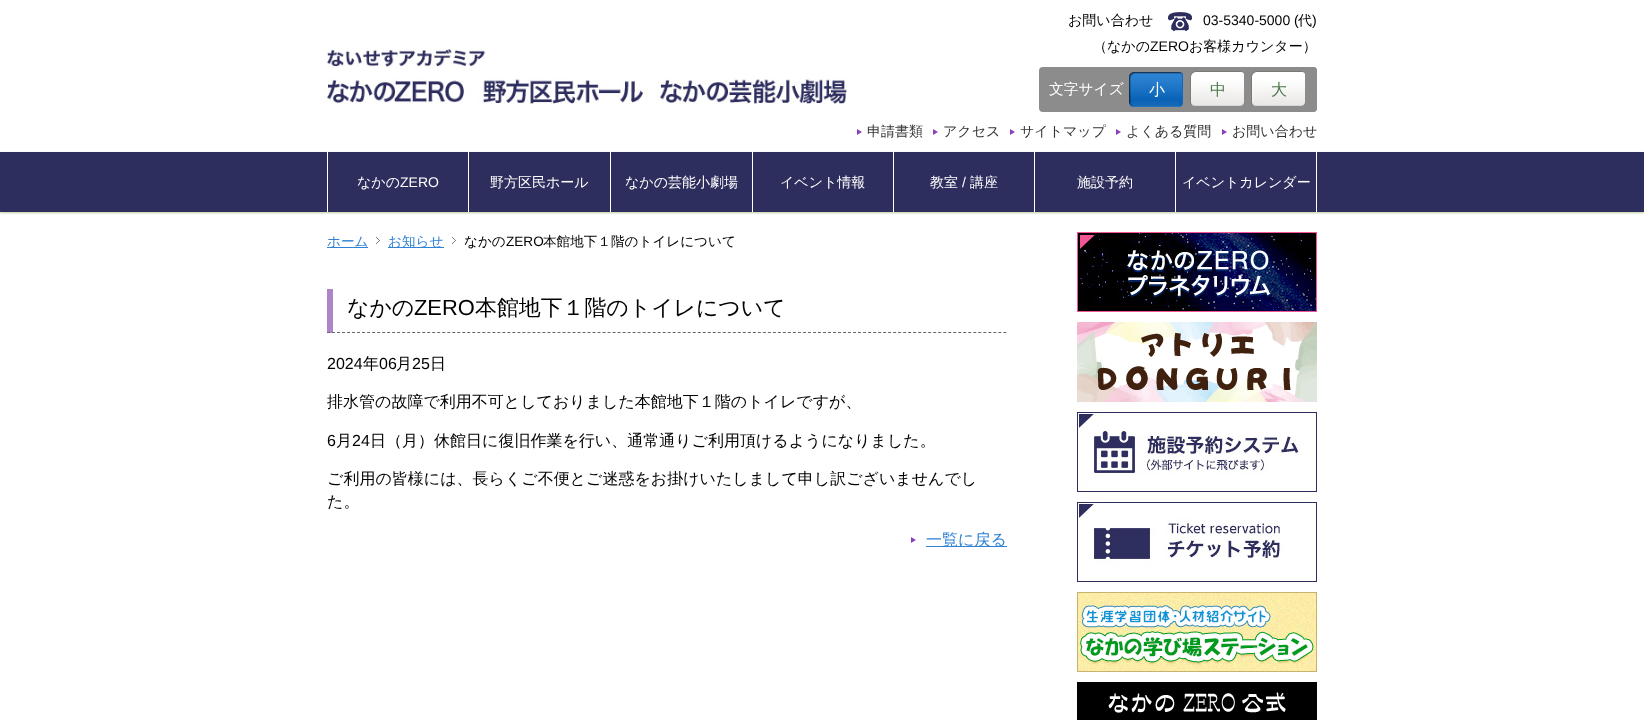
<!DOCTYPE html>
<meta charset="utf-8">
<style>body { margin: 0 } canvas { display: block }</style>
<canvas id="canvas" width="1644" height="720"></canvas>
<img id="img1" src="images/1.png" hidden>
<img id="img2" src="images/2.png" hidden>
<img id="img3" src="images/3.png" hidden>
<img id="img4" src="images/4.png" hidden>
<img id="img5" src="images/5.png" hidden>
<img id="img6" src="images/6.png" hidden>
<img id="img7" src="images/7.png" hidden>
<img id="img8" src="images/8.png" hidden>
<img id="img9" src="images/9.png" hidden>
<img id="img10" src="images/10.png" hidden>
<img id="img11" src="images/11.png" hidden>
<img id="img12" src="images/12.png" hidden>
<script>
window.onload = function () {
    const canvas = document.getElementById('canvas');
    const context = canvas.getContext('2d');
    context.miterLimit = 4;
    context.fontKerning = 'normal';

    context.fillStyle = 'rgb(255, 255, 255)';
    context.fillRect(0, 0, 1644, 720);
    context.drawImage(document.getElementById('img1'), 1168, 12, 24, 19);
    context.drawImage(document.getElementById('img2'), 327, 49, 520, 56);
    context.fillStyle = 'rgb(140, 140, 140)';
    context.beginPath();
    context.roundRect(1039, 67, 278, 45, 4);
    context.fill();
    context.beginPath();
    context.roundRect(1124, 67, 193, 45, [0, 4, 4, 0]);
    context.fill();
    context.drawImage(document.getElementById('img3'), 1129, 72, 54, 35);
    context.drawImage(document.getElementById('img4'), 1190, 71, 54, 35);
    context.drawImage(document.getElementById('img4'), 1251, 71, 54, 35);
    context.drawImage(document.getElementById('img5'), 857, 129, 5, 6);
    context.drawImage(document.getElementById('img5'), 933, 129, 5, 6);
    context.drawImage(document.getElementById('img5'), 1010, 129, 5, 6);
    context.drawImage(document.getElementById('img5'), 1116, 129, 5, 6);
    context.drawImage(document.getElementById('img5'), 1222, 129, 5, 6);
    context.fillStyle = 'rgba(122, 156, 69, 0.5)';
    context.filter = 'blur(1px)';
    context.beginPath();
    context.rect(0, 153, 1644, 60);
    context.fill();
    context.filter = 'none';
    context.fillStyle = 'rgb(46, 46, 94)';
    context.fillRect(0, 152, 1644, 60);
    context.fillStyle = 'rgb(255, 255, 255)';
    context.fillRect(468, 152, 1, 60);
    context.fillRect(327, 152, 1, 60);
    context.fillRect(610, 152, 1, 60);
    context.fillRect(752, 152, 1, 60);
    context.fillRect(893, 152, 1, 60);
    context.fillRect(1034, 152, 1, 60);
    context.fillRect(1175, 152, 1, 60);
    context.fillRect(1316, 152, 1, 60);
    context.drawImage(document.getElementById('img6'), 376, 237, 4, 7);
    context.fillStyle = 'rgb(47, 130, 213)';
    context.fillRect(327, 247, 41, 1);
    context.drawImage(document.getElementById('img6'), 452, 237, 4, 7);
    context.fillRect(388, 247, 56, 1);
    context.fillStyle = 'rgb(173, 133, 200)';
    context.fillRect(327, 289, 6, 44);
    context.beginPath();
    context.moveTo(327, 332.5);
    context.lineTo(1007, 332.5);
    context.strokeStyle = 'rgb(102, 102, 102)';
    context.setLineDash([3, 2.01]);
    context.stroke();
    context.drawImage(document.getElementById('img5'), 911, 537, 5, 6);
    context.fillStyle = 'rgb(47, 130, 213)';
    context.fillRect(926, 546, 81, 1);
    context.drawImage(document.getElementById('img7'), 1077, 232, 240, 80);
    context.drawImage(document.getElementById('img8'), 1077, 322, 240, 80);
    context.drawImage(document.getElementById('img9'), 1077, 412, 240, 80);
    context.drawImage(document.getElementById('img10'), 1077, 502, 240, 80);
    context.drawImage(document.getElementById('img11'), 1077, 592, 240, 80);
    context.drawImage(document.getElementById('img12'), 1077, 682, 240, 38);
    context.font = '500 14px WenQuanYi Zen Hei';
    context.fillStyle = 'rgb(0, 0, 0)';
    context.fillText('お問い合わせ', 1068, 25);
    context.font = '14px Liberation Sans';
    context.fillText('03-5340-5000 (', 1203, 25);
    context.font = '500 14px WenQuanYi Zen Hei';
    context.fillText('代', 1298, 25);
    context.font = '14px Liberation Sans';
    context.fillText(')', 1312, 25);
    context.font = '500 14px WenQuanYi Zen Hei';
    context.fillText('（なかの', 1093, 51);
    context.font = '14px Liberation Sans';
    context.fillText('ZERO', 1150, 51);
    context.font = '500 14px WenQuanYi Zen Hei';
    context.fillText('お客様カウンター）', 1189, 51);
    context.font = '500 14.75px WenQuanYi Zen Hei';
    context.fillStyle = 'rgb(255, 255, 255)';
    context.fillText('文字サイズ', 1049, 94);
    context.font = '500 16px WenQuanYi Zen Hei';
    context.fillText('小', 1149, 95);
    context.fillStyle = 'rgb(77, 119, 76)';
    context.fillText('中', 1210, 95);
    context.fillText('大', 1271, 95);
    context.font = '500 14px WenQuanYi Zen Hei';
    context.fillStyle = 'rgb(51, 51, 51)';
    context.fillText('申請書類', 867, 136);
    context.fillText('アクセス', 943, 136);
    context.fillText('サイトマップ', 1020, 136);
    context.fillText('よくある質問', 1126, 136);
    context.fillText('お問い合わせ', 1232, 136);
    context.fillStyle = 'rgb(255, 255, 255)';
    context.fillText('なかの', 357, 187);
    context.font = '14px Liberation Sans';
    context.fillText('ZERO', 400, 187);
    context.font = '500 14px WenQuanYi Zen Hei';
    context.fillText('野方区民ホール', 490, 187);
    context.fillText('なかの芸能小劇場', 625, 187);
    context.fillText('イベント情報', 780, 187);
    context.fillText('教室', 930, 187);
    context.font = '14px Liberation Sans';
    context.fillText('/', 962, 187);
    context.font = '500 14px WenQuanYi Zen Hei';
    context.fillText('講座', 970, 187);
    context.fillText('施設予約', 1077, 187);
    context.fillText('イベントカレンダー', 1182, 187);
    context.font = '500 13.6px WenQuanYi Zen Hei';
    context.fillStyle = 'rgb(47, 130, 213)';
    context.fillText('ホーム', 327, 246);
    context.fillText('お知らせ', 388, 246);
    context.fillStyle = 'rgb(0, 0, 0)';
    context.fillText('なかの', 464, 246);
    context.font = '13.6px Liberation Sans';
    context.fillText('ZERO', 506, 246);
    context.font = '500 13.6px WenQuanYi Zen Hei';
    context.fillText('本館地下１階のトイレについて', 543, 246);
    context.font = '500 21.9px WenQuanYi Zen Hei';
    context.fillText('なかの', 347, 315);
    context.font = '21.9px Liberation Sans';
    context.fillText('ZERO', 414, 315);
    context.font = '500 21.9px WenQuanYi Zen Hei';
    context.fillText('本館地下１階のトイレについて', 475, 315);
    context.font = '16px Liberation Sans';
    context.fillText('2024', 327, 369);
    context.font = '500 16px WenQuanYi Zen Hei';
    context.fillText('年', 363, 369);
    context.font = '16px Liberation Sans';
    context.fillText('06', 379, 369);
    context.font = '500 16px WenQuanYi Zen Hei';
    context.fillText('月', 396, 369);
    context.font = '16px Liberation Sans';
    context.fillText('25', 412, 369);
    context.font = '500 16px WenQuanYi Zen Hei';
    context.fillText('日', 430, 369);
    context.fillText('排水管の故障で利用不可としておりました本館地下１階のトイレですが、', 327, 407);
    context.font = '16px Liberation Sans';
    context.fillText('6', 327, 446);
    context.font = '500 16px WenQuanYi Zen Hei';
    context.fillText('月', 336, 446);
    context.font = '16px Liberation Sans';
    context.fillText('24', 352, 446);
    context.font = '500 16px WenQuanYi Zen Hei';
    context.fillText('日（月）休館日に復旧作業を行い、通常通りご利用頂けるようになりました。', 370, 446);
    context.fillText('ご利用の皆様には、長らくご不便とご迷惑をお掛けいたしまして申し訳ございませんでし', 327, 484);
    context.fillText('た。', 327, 507);
    context.fillStyle = 'rgb(47, 130, 213)';
    context.fillText('一覧に戻る', 926, 545);
};
</script>
